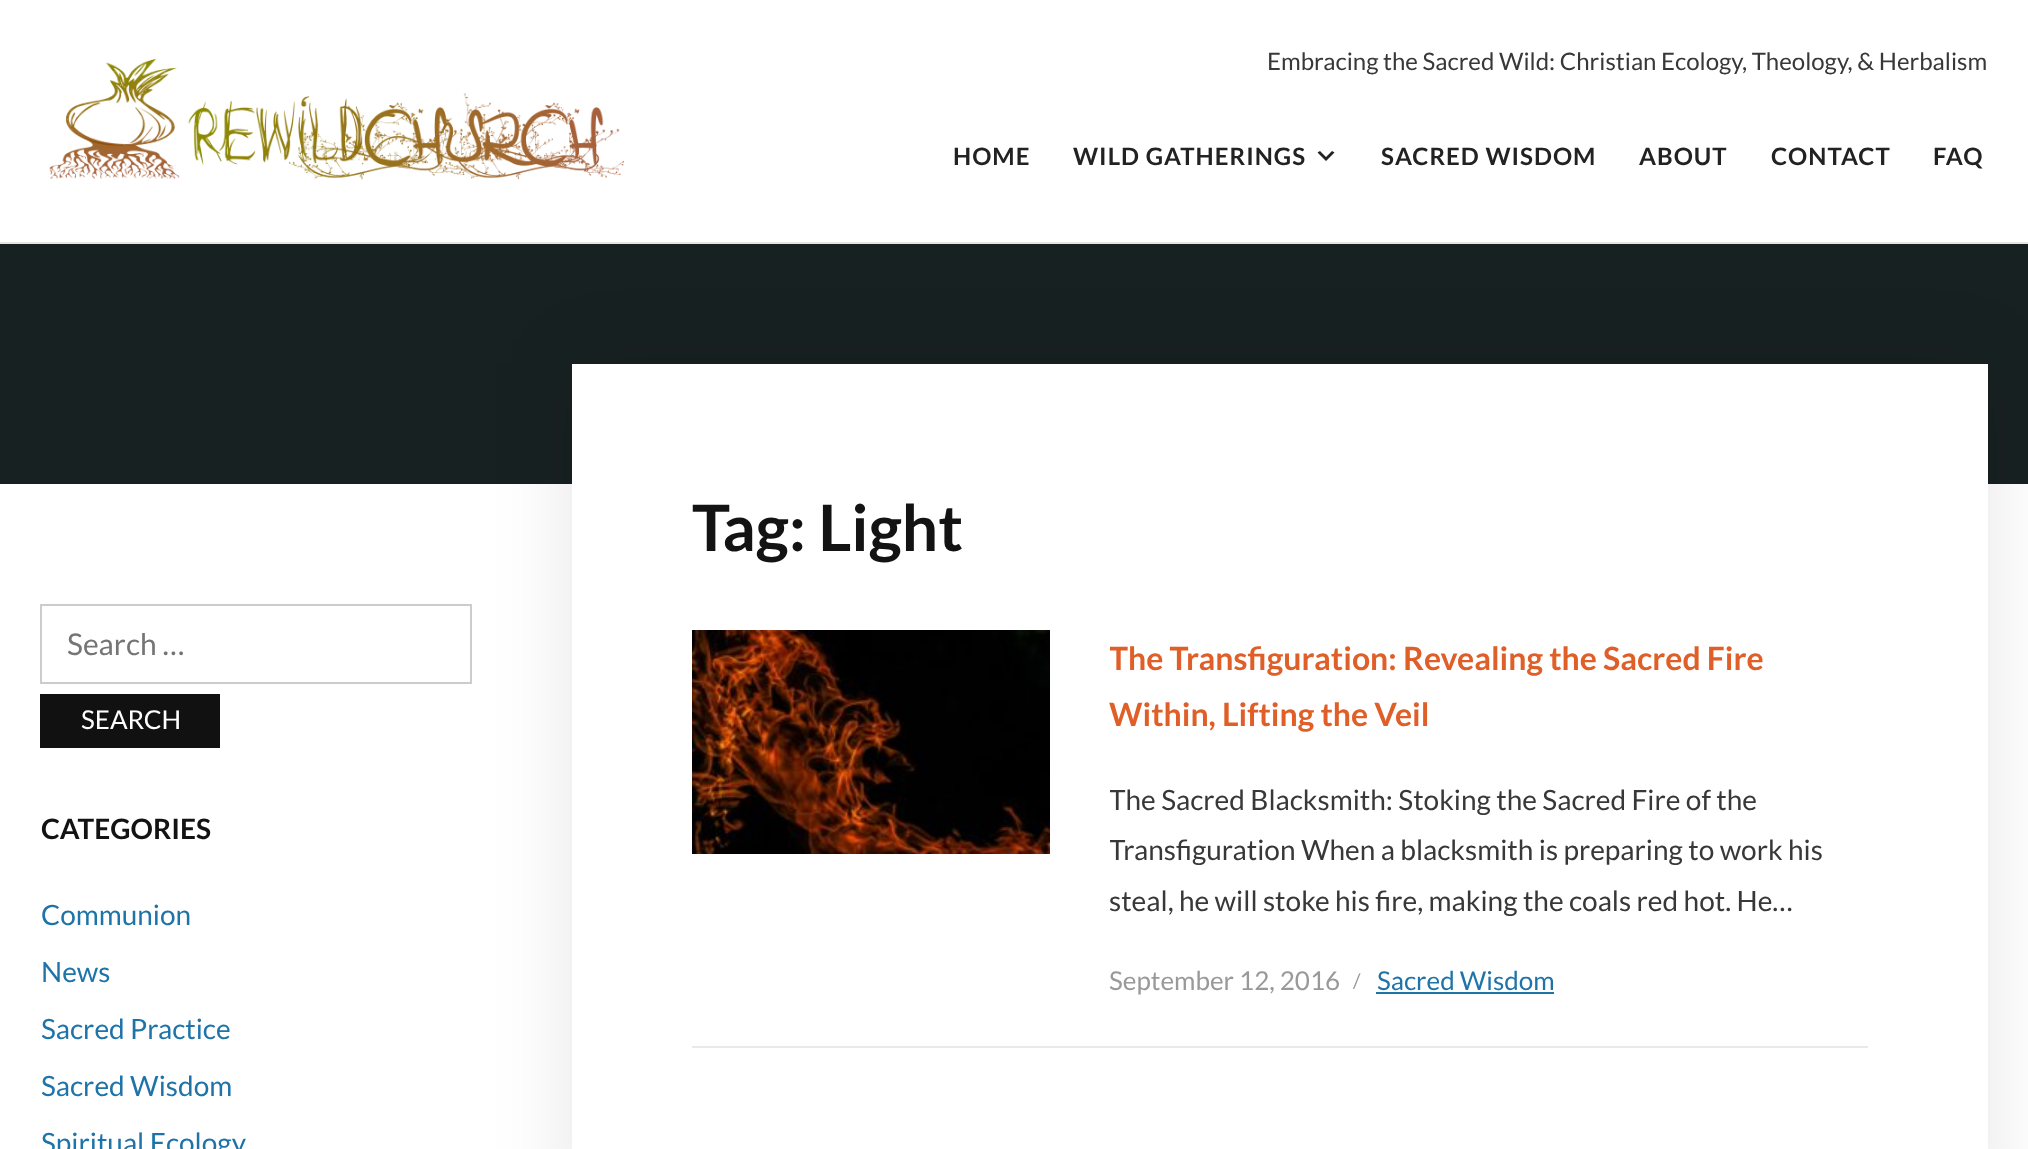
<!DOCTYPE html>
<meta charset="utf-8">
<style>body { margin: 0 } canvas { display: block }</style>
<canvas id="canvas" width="2028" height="1149"></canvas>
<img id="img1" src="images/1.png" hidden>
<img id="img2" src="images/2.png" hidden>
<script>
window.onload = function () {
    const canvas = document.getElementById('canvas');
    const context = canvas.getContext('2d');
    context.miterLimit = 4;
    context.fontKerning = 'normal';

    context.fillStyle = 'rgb(255, 255, 255)';
    context.fillRect(0, 0, 2028, 1149);
    context.fillStyle = 'rgb(231, 227, 224)';
    context.fillRect(0, 242, 2028, 2);
    context.drawImage(document.getElementById('img1'), 49, 58, 575, 122);
    context.fillStyle = 'rgb(34, 34, 34)';
    context.beginPath();
    context.moveTo(1320, 151);
    context.lineTo(1326, 157);
    context.lineTo(1332, 151);
    context.lineTo(1334.5, 152.5);
    context.lineTo(1326, 161);
    context.lineTo(1317.5, 152.5);
    context.closePath();
    context.fill();
    context.fillStyle = 'rgb(24, 33, 34)';
    context.fillRect(0, 244, 2028, 240);
    context.strokeStyle = 'rgb(204, 204, 204)';
    context.lineWidth = 2;
    context.strokeRect(41, 605, 430, 78);
    context.fillStyle = 'rgb(17, 17, 17)';
    context.fillRect(40, 694, 180, 54);
    context.fillStyle = 'rgba(0, 0, 0, 0.1)';
    context.filter = 'blur(40px)';
    context.beginPath();
    context.rect(572, 364, 1416, 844);
    context.fill();
    context.filter = 'none';
    context.fillStyle = 'rgb(255, 255, 255)';
    context.fillRect(572, 364, 1416, 785);
    context.fillStyle = 'rgb(233, 233, 233)';
    context.fillRect(692, 1046, 1176, 2);
    context.drawImage(document.getElementById('img2'), 692, 630, 358, 224);
    context.fillStyle = 'rgb(30, 116, 169)';
    context.fillRect(1376, 992, 178, 2);
    context.font = '24px Lato';
    context.fillStyle = 'rgb(56, 56, 56)';
    context.fillText('Embracing the Sacred Wild: Christian Ecology, Theology, & Herbalism', 1267, 70);
    context.letterSpacing = '1px';
    context.font = 'bold 24px Lato';
    context.fillStyle = 'rgb(34, 34, 34)';
    context.fillText('HOME', 953, 165);
    context.fillText('WILD GATHERINGS', 1073, 165);
    context.fillText('SACRED WISDOM', 1381, 165);
    context.fillText('ABOUT', 1639, 165);
    context.fillText('CONTACT', 1771, 165);
    context.fillText('FAQ', 1933, 165);
    context.letterSpacing = '0px';
    context.font = '30px Lato';
    context.fillStyle = 'rgb(117, 117, 117)';
    context.fillText('Search …', 67, 655);
    context.font = '26px Lato';
    context.fillStyle = 'rgb(255, 255, 255)';
    context.fillText('SEARCH', 81, 729);
    context.font = 'bold 28px Lato';
    context.fillStyle = 'rgb(19, 19, 19)';
    context.fillText('CATEGORIES', 41, 839);
    context.font = '28px Lato';
    context.fillStyle = 'rgb(30, 116, 169)';
    context.fillText('Communion', 41, 925);
    context.fillText('News', 41, 982);
    context.fillText('Sacred Practice', 41, 1039);
    context.fillText('Sacred Wisdom', 41, 1096);
    context.fillText('Spiritual Ecology', 41, 1153);
    context.font = 'bold 64px Lato';
    context.fillStyle = 'rgb(19, 19, 19)';
    context.fillText('Tag: Light', 692, 551);
    context.save();
    context.beginPath();
    context.rect(1110, 630, 758, 376);
    context.clip();
    context.font = 'bold 32px Lato';
    context.fillStyle = 'rgb(224, 95, 40)';
    context.fillText('The Transfiguration: Revealing the Sacred Fire', 1109, 670);
    context.restore();
    context.font = 'bold 32px Lato';
    context.fillStyle = 'rgb(224, 95, 40)';
    context.fillText('Within, Lifting the Veil', 1109, 726);
    context.save();
    context.beginPath();
    context.rect(1110, 630, 758, 376);
    context.clip();
    context.font = '28px Lato';
    context.fillStyle = 'rgb(56, 56, 56)';
    context.fillText('The Sacred Blacksmith: Stoking the Sacred Fire of the', 1109, 810);
    context.fillText('Transfiguration When a blacksmith is preparing to work his', 1109, 860);
    context.restore();
    context.font = '28px Lato';
    context.fillStyle = 'rgb(56, 56, 56)';
    context.fillText('steal, he will stoke his fire, making the coals red hot. He…', 1109, 911);
    context.font = '26px Lato';
    context.fillStyle = 'rgb(153, 153, 153)';
    context.fillText('September 12, 2016', 1109, 990);
    context.font = '20px Lato';
    context.fillText('/', 1353, 988);
    context.font = '26px Lato';
    context.fillStyle = 'rgb(30, 116, 169)';
    context.fillText('Sacred Wisdom', 1377, 990);
};
</script>
